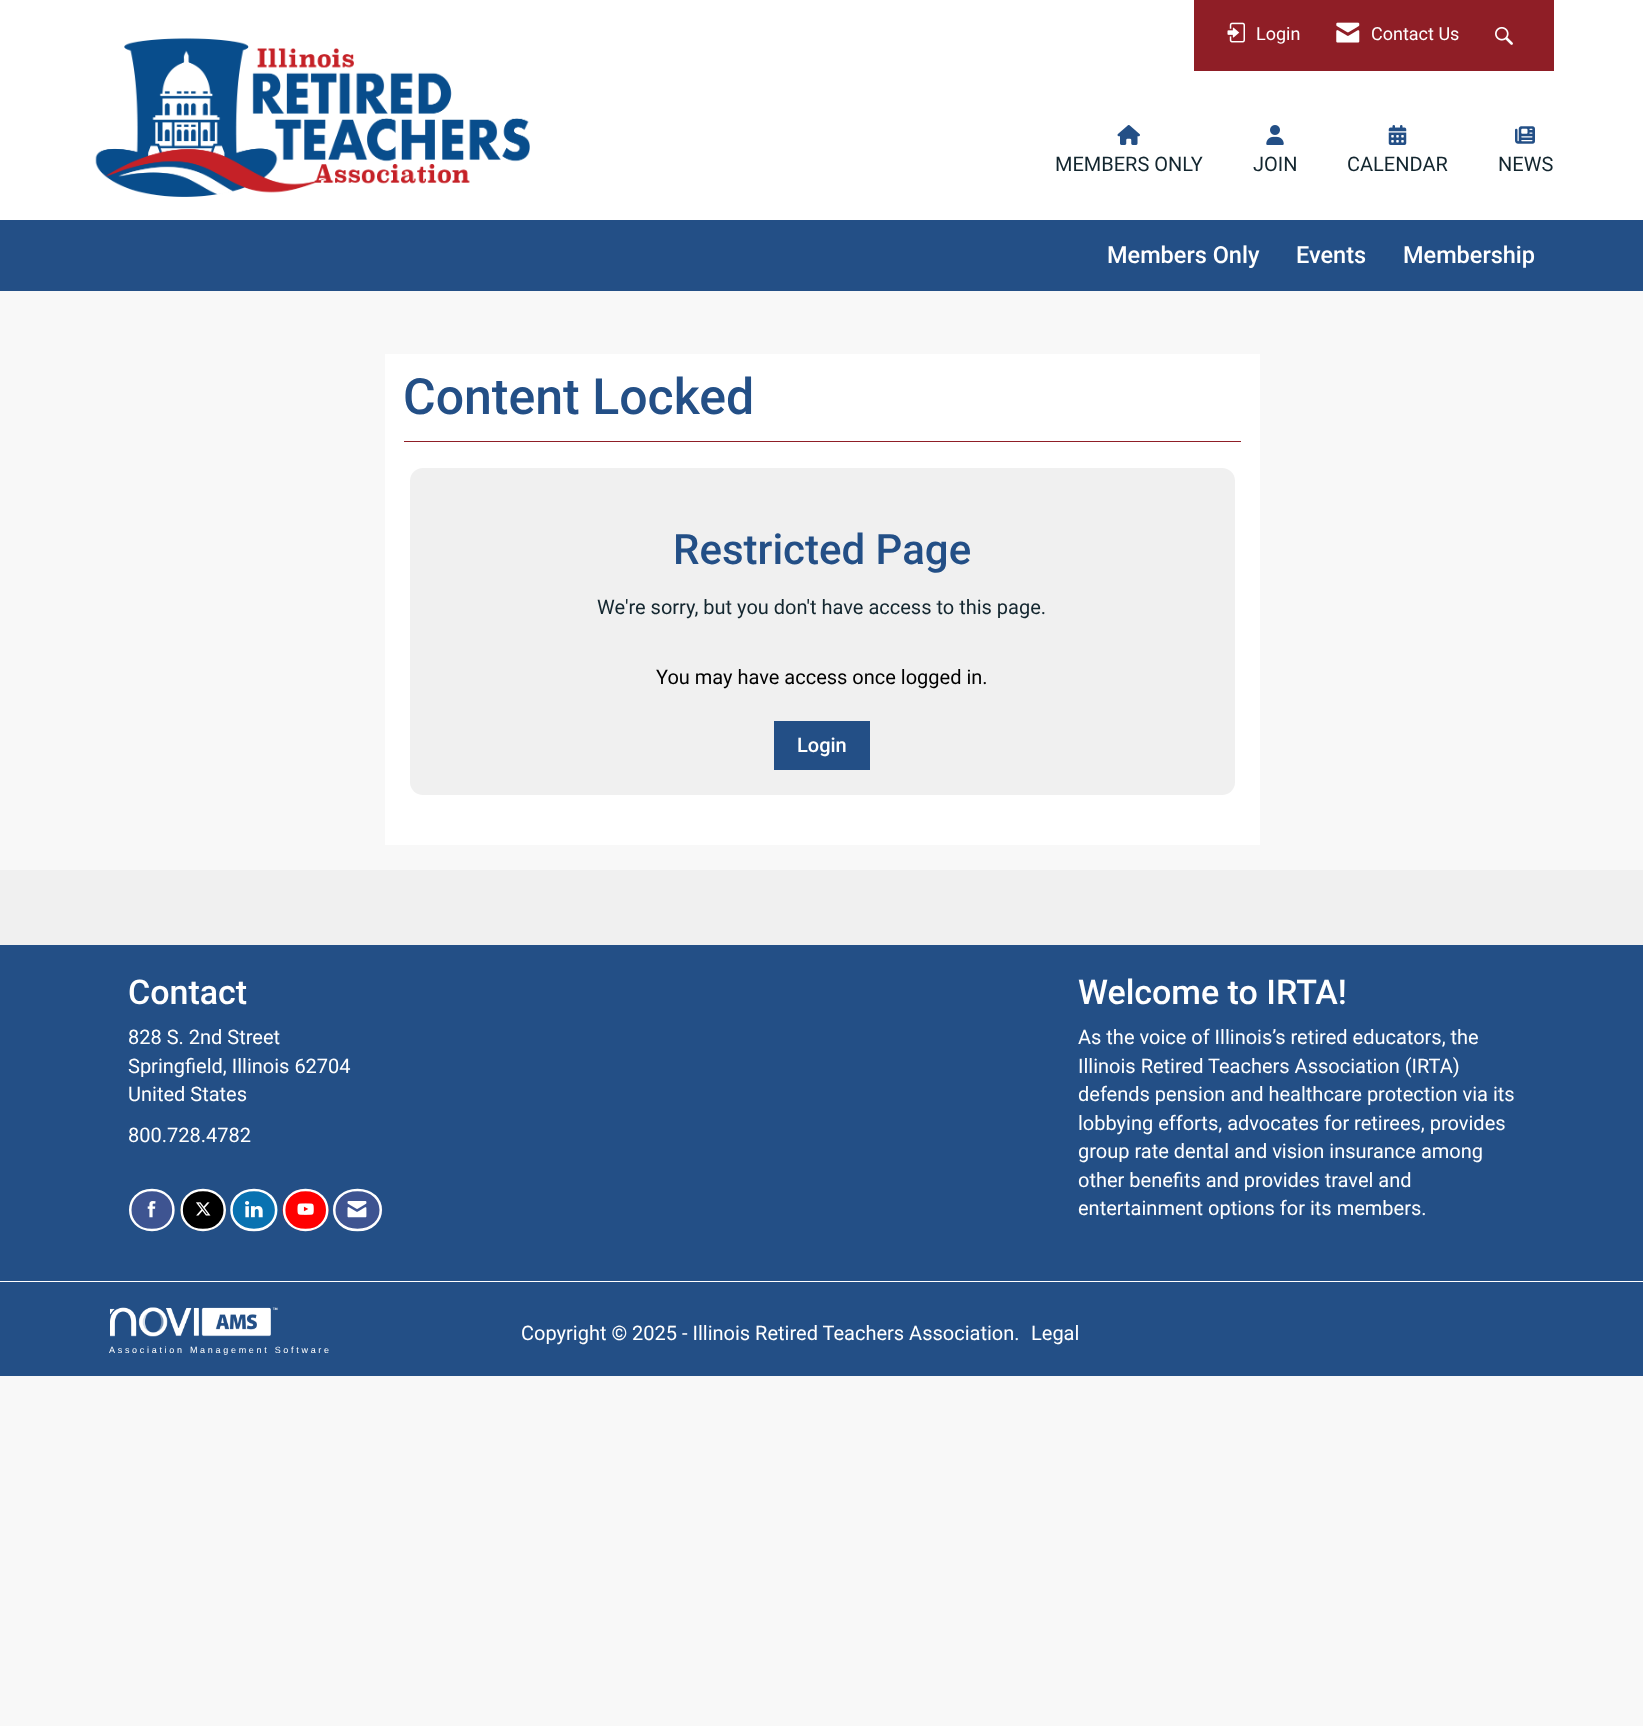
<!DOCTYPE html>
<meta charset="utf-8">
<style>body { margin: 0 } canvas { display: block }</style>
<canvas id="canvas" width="1643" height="1726"></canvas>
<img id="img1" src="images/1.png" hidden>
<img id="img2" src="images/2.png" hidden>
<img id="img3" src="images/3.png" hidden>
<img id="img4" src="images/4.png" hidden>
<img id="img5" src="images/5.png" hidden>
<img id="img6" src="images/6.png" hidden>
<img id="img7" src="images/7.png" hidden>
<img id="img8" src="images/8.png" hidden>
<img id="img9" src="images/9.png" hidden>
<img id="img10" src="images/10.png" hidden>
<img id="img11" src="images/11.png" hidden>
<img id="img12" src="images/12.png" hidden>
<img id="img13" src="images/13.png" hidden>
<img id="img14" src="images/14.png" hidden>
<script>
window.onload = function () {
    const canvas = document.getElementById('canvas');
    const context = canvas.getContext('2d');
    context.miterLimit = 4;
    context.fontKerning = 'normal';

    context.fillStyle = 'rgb(248, 248, 248)';
    context.fillRect(0, 0, 1643, 1726);
    context.fillStyle = 'rgb(255, 255, 255)';
    context.fillRect(0, 0, 1643, 220);
    context.fillStyle = 'rgb(143, 30, 38)';
    context.fillRect(1194, 0, 360, 71);
    context.drawImage(document.getElementById('img1'), 1227, 22, 18, 21);
    context.drawImage(document.getElementById('img2'), 1336, 22, 24, 21);
    context.drawImage(document.getElementById('img3'), 1495, 26, 18, 19);
    context.drawImage(document.getElementById('img4'), 95, 38, 435, 159);
    context.drawImage(document.getElementById('img5'), 1117, 125, 23, 20);
    context.drawImage(document.getElementById('img6'), 1266, 125, 18, 20);
    context.drawImage(document.getElementById('img7'), 1388, 125, 19, 20);
    context.drawImage(document.getElementById('img8'), 1515, 126, 20, 18);
    context.fillStyle = 'rgb(35, 79, 134)';
    context.fillRect(0, 220, 1643, 71);
    context.fillStyle = 'rgb(255, 255, 255)';
    context.fillRect(385, 354, 875, 491);
    context.fillStyle = 'rgb(143, 30, 38)';
    context.fillRect(404, 441, 837, 1);
    context.fillStyle = 'rgb(240, 240, 240)';
    context.beginPath();
    context.roundRect(410, 468, 825, 327, 13);
    context.fill();
    context.fillStyle = 'rgb(35, 79, 134)';
    context.fillRect(774, 721, 96, 49);
    context.fillStyle = 'rgb(240, 240, 240)';
    context.fillRect(0, 870, 1643, 75);
    context.fillStyle = 'rgb(35, 79, 134)';
    context.fillRect(0, 945, 1643, 336);
    context.fillStyle = 'rgb(62, 84, 145)';
    context.beginPath();
    context.ellipse(152, 1210, 23, 21, 0, 0, 2 * Math.PI);
    context.fill();
    context.beginPath();
    context.moveTo(152, 1190);
    context.bezierCurveTo(180.5, 1190, 180.5, 1230, 152, 1230);
    context.bezierCurveTo(123, 1230, 123, 1190, 152, 1190);
    context.closePath();
    context.strokeStyle = 'rgb(255, 255, 255)';
    context.lineWidth = 2.5;
    context.stroke();
    context.drawImage(document.getElementById('img9'), 147, 1201, 9, 17);
    context.fillStyle = 'rgb(0, 0, 0)';
    context.beginPath();
    context.ellipse(203, 1210, 23, 21, 0, 0, 2 * Math.PI);
    context.fill();
    context.beginPath();
    context.moveTo(203, 1190);
    context.bezierCurveTo(232, 1190, 232, 1230, 203, 1230);
    context.bezierCurveTo(174.5, 1230, 174.5, 1190, 203, 1190);
    context.closePath();
    context.stroke();
    context.drawImage(document.getElementById('img10'), 196, 1202, 15, 14);
    context.fillStyle = 'rgb(9, 114, 177)';
    context.beginPath();
    context.ellipse(254, 1210, 24, 21, 0, 0, 2 * Math.PI);
    context.fill();
    context.beginPath();
    context.moveTo(254, 1190);
    context.bezierCurveTo(283.5, 1190, 283.5, 1230, 254, 1230);
    context.bezierCurveTo(224, 1230, 224, 1190, 254, 1190);
    context.closePath();
    context.stroke();
    context.drawImage(document.getElementById('img11'), 245, 1201, 18, 17);
    context.fillStyle = 'rgb(255, 0, 0)';
    context.beginPath();
    context.ellipse(305.5, 1210, 23, 21, 0, 0, 2 * Math.PI);
    context.fill();
    context.beginPath();
    context.moveTo(305.5, 1190);
    context.bezierCurveTo(334.5, 1190, 334.5, 1230, 305.5, 1230);
    context.bezierCurveTo(277, 1230, 277, 1190, 305.5, 1190);
    context.closePath();
    context.stroke();
    context.drawImage(document.getElementById('img12'), 297, 1203, 17, 12);
    context.fillStyle = 'rgb(62, 84, 145)';
    context.beginPath();
    context.ellipse(357.5, 1210, 25, 21, 0, 0, 2 * Math.PI);
    context.fill();
    context.beginPath();
    context.moveTo(357.5, 1190);
    context.bezierCurveTo(388.5, 1190, 388.5, 1230, 357.5, 1230);
    context.bezierCurveTo(326.5, 1230, 326.5, 1190, 357.5, 1190);
    context.closePath();
    context.stroke();
    context.drawImage(document.getElementById('img13'), 347, 1201, 20, 17);
    context.fillStyle = 'rgb(35, 79, 134)';
    context.fillRect(0, 1282, 1643, 94);
    context.fillStyle = 'rgb(255, 255, 255)';
    context.fillRect(0, 1281, 1643, 1);
    context.drawImage(document.getElementById('img14'), 110, 1307, 168, 30);
    context.font = '18px Roboto';
    context.fillText('Login', 1256, 40);
    context.fillText('Contact Us', 1371, 40);
    context.font = '20px Roboto';
    context.fillStyle = 'rgb(19, 38, 47)';
    context.fillText('MEMBERS ONLY', 1055, 171);
    context.fillText('JOIN', 1253, 171);
    context.fillText('CALENDAR', 1347, 171);
    context.fillText('NEWS', 1498, 171);
    context.font = '500 23.5px Roboto';
    context.fillStyle = 'rgb(255, 255, 255)';
    context.fillText('Members Only', 1107, 263);
    context.fillText('Events', 1296, 263);
    context.fillText('Membership', 1403, 263);
    context.font = '500 50px Roboto';
    context.fillStyle = 'rgb(35, 79, 134)';
    context.fillText('Content Locked', 403, 414);
    context.font = '500 42px Roboto';
    context.fillText('Restricted Page', 673, 564);
    context.font = '20px Roboto';
    context.fillStyle = 'rgb(19, 38, 47)';
    context.fillText('We\'re sorry, but you don\'t have access to this page.', 597, 614);
    context.fillStyle = 'rgb(0, 0, 0)';
    context.fillText('You may have access once logged in.', 656, 684);
    context.font = '500 20px Roboto';
    context.fillStyle = 'rgb(255, 255, 255)';
    context.fillText('Login', 797, 752);
    context.font = '500 34px Roboto';
    context.fillText('Contact', 128, 1004);
    context.font = '20px Roboto';
    context.fillText('828 S. 2nd Street', 128, 1044);
    context.fillText('Springfield, Illinois 62704', 128, 1073);
    context.fillText('United States', 128, 1101);
    context.fillText('800.728.4782', 128, 1142);
    context.font = '500 34px Roboto';
    context.fillText('Welcome to IRTA!', 1078, 1004);
    context.font = '20px Roboto';
    context.fillText('As the voice of Illinois’s retired educators, the', 1078, 1044);
    context.fillText('Illinois Retired Teachers Association (IRTA)', 1078, 1073);
    context.fillText('defends pension and healthcare protection via its', 1078, 1101);
    context.fillText('lobbying efforts, advocates for retirees, provides', 1078, 1130);
    context.fillText('group rate dental and vision insurance among', 1078, 1158);
    context.fillText('other benefits and provides travel and', 1078, 1187);
    context.fillText('entertainment options for its members.', 1078, 1215);
    context.fillText('Copyright © 2025 - Illinois Retired Teachers Association.', 521, 1340);
    context.fillText('Legal', 1031, 1340);
    context.letterSpacing = '2.7px';
    context.font = '9px Liberation Sans';
    context.fillText('Association Management Software', 109, 1353);
};
</script>
